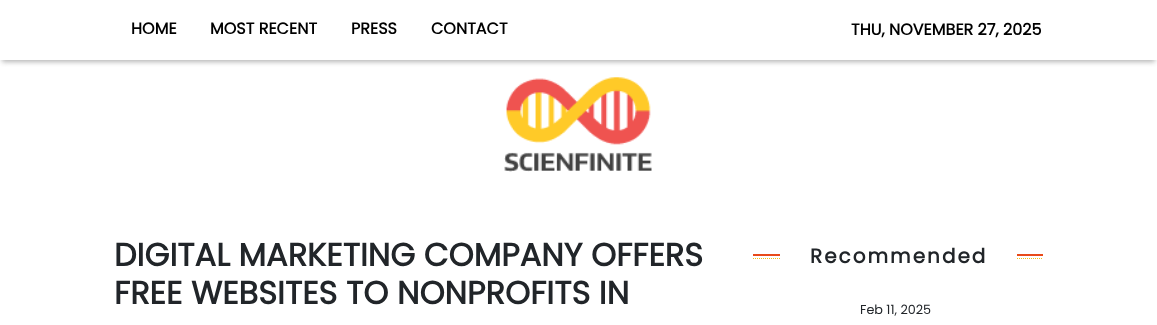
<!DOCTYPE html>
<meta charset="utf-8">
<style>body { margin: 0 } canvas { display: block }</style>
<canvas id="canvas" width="1157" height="325"></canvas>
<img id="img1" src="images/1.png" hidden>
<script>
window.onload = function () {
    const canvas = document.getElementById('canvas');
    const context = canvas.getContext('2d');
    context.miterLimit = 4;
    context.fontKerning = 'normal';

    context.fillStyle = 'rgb(255, 255, 255)';
    context.fillRect(0, 0, 1157, 325);
    context.save();
    context.beginPath();
    context.rect(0, 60, 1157, 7);
    context.clip();
    context.fillStyle = 'rgb(182, 182, 182)';
    context.filter = 'blur(2.5px)';
    context.beginPath();
    context.rect(2, 6, 1153, 56);
    context.fill();
    context.filter = 'none';
    context.restore();
    context.drawImage(document.getElementById('img1'), 504, 77, 148, 95);
    context.fillStyle = 'rgb(233, 74, 26)';
    context.fillRect(753, 254, 27, 2);
    context.save();
    context.beginPath();
    context.rect(753, 236, 290, 48);
    context.clip();
    context.beginPath();
    context.moveTo(-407, 258.5);
    context.lineTo(780, 258.5);
    context.strokeStyle = 'rgb(241, 191, 27)';
    context.setLineDash([1, 1]);
    context.stroke();
    context.restore();
    context.fillRect(1017, 254, 26, 2);
    context.save();
    context.beginPath();
    context.rect(753, 236, 290, 48);
    context.clip();
    context.beginPath();
    context.moveTo(1017, 258.5);
    context.lineTo(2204, 258.5);
    context.strokeStyle = 'rgb(241, 191, 27)';
    context.setLineDash([1, 1]);
    context.stroke();
    context.restore();
    context.font = 'bold 16px Poppins';
    context.fillStyle = 'rgb(0, 0, 0)';
    context.fillText('HOME', 131, 34);
    context.fillText('MOST RECENT', 210, 34);
    context.fillText('PRESS', 351, 34);
    context.fillText('CONTACT', 431, 34);
    context.fillText('THU, NOVEMBER 27, 2025', 851, 35);
    context.font = 'bold 32px Poppins';
    context.fillStyle = 'rgb(33, 37, 41)';
    context.fillText('DIGITAL MARKETING COMPANY OFFERS', 114, 266);
    context.fillText('FREE WEBSITES TO NONPROFITS IN', 114, 304);
    context.letterSpacing = '2px';
    context.font = 'bold 20px Poppins';
    context.fillText('Recommended', 810, 263);
    context.letterSpacing = '0px';
    context.font = '12.75px Poppins';
    context.fillText('Feb 11, 2025', 860, 314);
};
</script>
